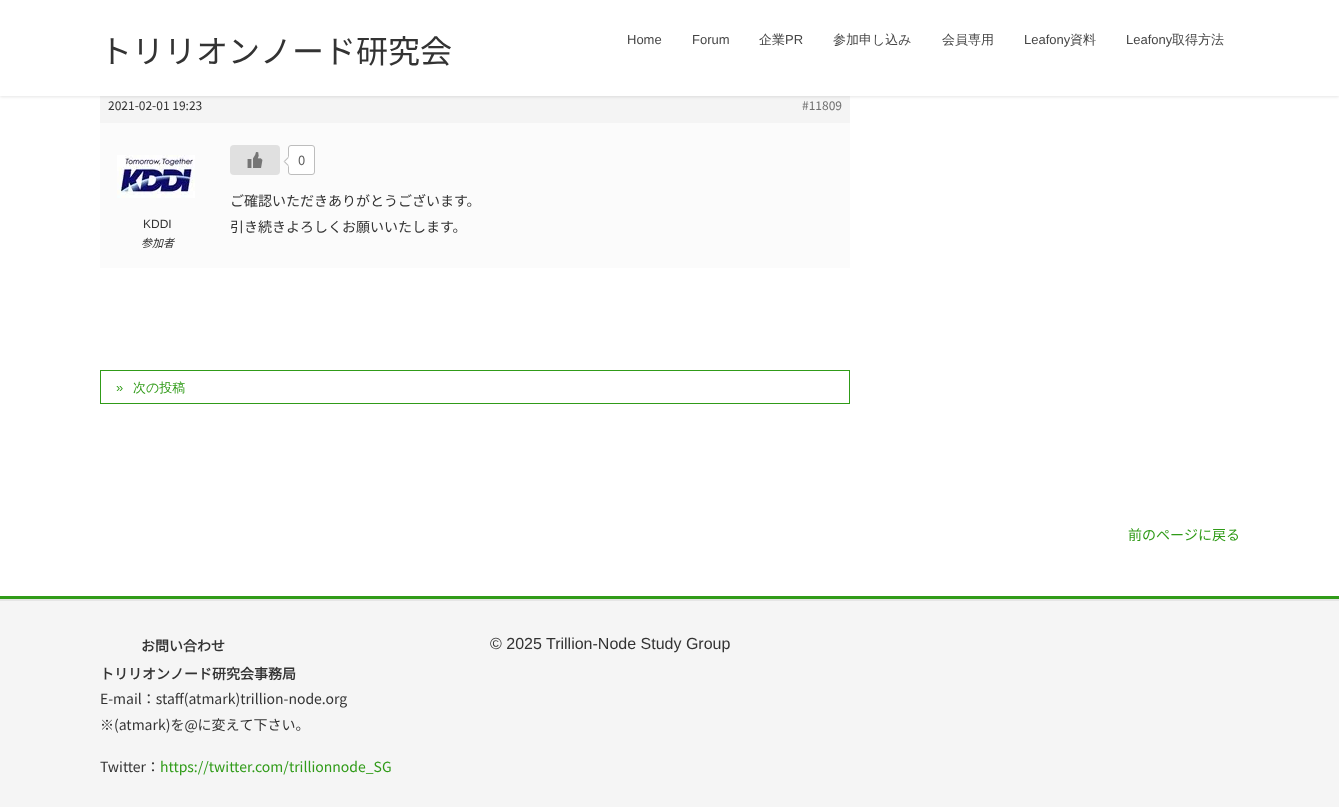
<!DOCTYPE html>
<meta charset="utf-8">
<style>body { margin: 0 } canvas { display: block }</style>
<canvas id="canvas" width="1339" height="807"></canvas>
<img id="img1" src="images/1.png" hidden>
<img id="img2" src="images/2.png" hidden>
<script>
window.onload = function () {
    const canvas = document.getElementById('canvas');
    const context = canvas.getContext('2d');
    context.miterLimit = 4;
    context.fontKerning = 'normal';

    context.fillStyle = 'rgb(255, 255, 255)';
    context.fillRect(0, 0, 1339, 807);
    context.fillStyle = 'rgb(244, 244, 244)';
    context.fillRect(100, 96, 750, 27);
    context.fillStyle = 'rgba(0, 0, 0, 0.1)';
    context.filter = 'blur(1.5px)';
    context.beginPath();
    context.rect(0, 1, 1339, 96);
    context.fill();
    context.filter = 'none';
    context.fillStyle = 'rgb(255, 255, 255)';
    context.fillRect(0, 0, 1339, 96);
    context.fillStyle = 'rgb(251, 251, 251)';
    context.fillRect(100, 123, 750, 145);
    context.drawImage(document.getElementById('img1'), 117, 155, 78, 43);
    context.fillStyle = 'rgb(224, 224, 224)';
    context.beginPath();
    context.roundRect(230, 145, 50, 30, 4);
    context.fill();
    context.drawImage(document.getElementById('img2'), 247, 152, 16, 16);
    context.fillStyle = 'rgb(255, 255, 255)';
    context.beginPath();
    context.roundRect(288.5, 145.5, 26, 29, 2.5);
    context.fill();
    context.strokeStyle = 'rgb(189, 189, 189)';
    context.stroke();
    context.beginPath();
    context.moveTo(288.5, 156.5);
    context.lineTo(293.5, 161.5);
    context.lineTo(288.5, 166.5);
    context.lineTo(283.5, 161.5);
    context.closePath();
    context.fill();
    context.fillStyle = 'rgb(189, 189, 189)';
    context.beginPath();
    context.moveTo(288.5, 166.5);
    context.lineTo(283.5, 161.5);
    context.lineTo(285, 161.5);
    context.lineTo(288.5, 165);
    context.closePath();
    context.fill();
    context.beginPath();
    context.moveTo(283.5, 161.5);
    context.lineTo(288.5, 156.5);
    context.lineTo(288.5, 158);
    context.lineTo(285, 161.5);
    context.closePath();
    context.fill();
    context.strokeStyle = 'rgb(48, 155, 24)';
    context.strokeRect(100.5, 370.5, 749, 33);
    context.fillStyle = 'rgb(245, 245, 245)';
    context.fillRect(0, 601, 1339, 206);
    context.fillStyle = 'rgb(48, 155, 24)';
    context.fillRect(0, 596, 1339, 3);
    context.fillStyle = 'rgb(229, 229, 229)';
    context.fillRect(0, 599, 1339, 2);
    context.font = '100 32px Noto Sans JP';
    context.fillStyle = 'rgb(51, 51, 51)';
    context.fillText('トリリオンノード研究会', 100, 63);
    context.font = '13px Liberation Sans';
    context.fillStyle = 'rgb(70, 70, 70)';
    context.fillText('Home', 627, 44);
    context.fillText('Forum', 692, 44);
    context.font = '500 13px WenQuanYi Zen Hei';
    context.fillText('企業', 759, 44);
    context.font = '13px Liberation Sans';
    context.fillText('PR', 785, 44);
    context.font = '500 13px WenQuanYi Zen Hei';
    context.fillText('参加申し込み', 833, 44);
    context.fillText('会員専用', 942, 44);
    context.font = '13px Liberation Sans';
    context.fillText('Leafony', 1024, 44);
    context.font = '500 13px WenQuanYi Zen Hei';
    context.fillText('資料', 1070, 44);
    context.font = '13px Liberation Sans';
    context.fillText('Leafony', 1126, 44);
    context.font = '500 13px WenQuanYi Zen Hei';
    context.fillText('取得方法', 1172, 44);
    context.font = '100 12px Noto Sans JP';
    context.fillStyle = 'rgb(51, 51, 51)';
    context.fillText('2021-02-01 19:23', 108, 110);
    context.fillStyle = 'rgb(112, 112, 112)';
    context.fillText('#11809', 802, 110);
    context.font = '12px Liberation Sans';
    context.fillStyle = 'rgb(51, 51, 51)';
    context.fillText('KDDI', 143, 228);
    context.font = 'italic 100 11px Noto Sans JP';
    context.fillText('参加者', 141, 247);
    context.font = '100 13px Noto Sans JP';
    context.fillStyle = 'rgb(97, 97, 97)';
    context.fillText('0', 298, 165);
    context.font = '100 14px Noto Sans JP';
    context.fillStyle = 'rgb(51, 51, 51)';
    context.fillText('ご確認いただきありがとうございます。', 230, 206);
    context.fillText('引き続きよろしくお願いいたします。', 230, 232);
    context.font = '13px Liberation Sans';
    context.fillStyle = 'rgb(48, 155, 24)';
    context.fillText('»', 116, 392);
    context.font = '500 13px WenQuanYi Zen Hei';
    context.fillText('次の投稿', 133, 392);
    context.font = '100 14px Noto Sans JP';
    context.fillText('前のページに戻る', 1128, 540);
    context.font = 'bold 14px Noto Sans JP';
    context.fillStyle = 'rgb(51, 51, 51)';
    context.fillText('お問い合わせ', 141, 651);
    context.fillText('トリリオンノード研究会事務局', 100, 679);
    context.font = '100 14px Noto Sans JP';
    context.fillText('E-mail：staff(atmark)trillion-node.org', 100, 704);
    context.fillText('※(atmark)を@に変えて下さい。', 100, 730);
    context.fillText('Twitter：', 100, 772);
    context.fillStyle = 'rgb(48, 155, 24)';
    context.fillText('https://twitter.com/trillionnode_SG', 160, 772);
    context.font = '16px Liberation Sans';
    context.fillStyle = 'rgb(51, 51, 51)';
    context.fillText('© 2025 Trillion-Node Study Group', 490, 649);
};
</script>
